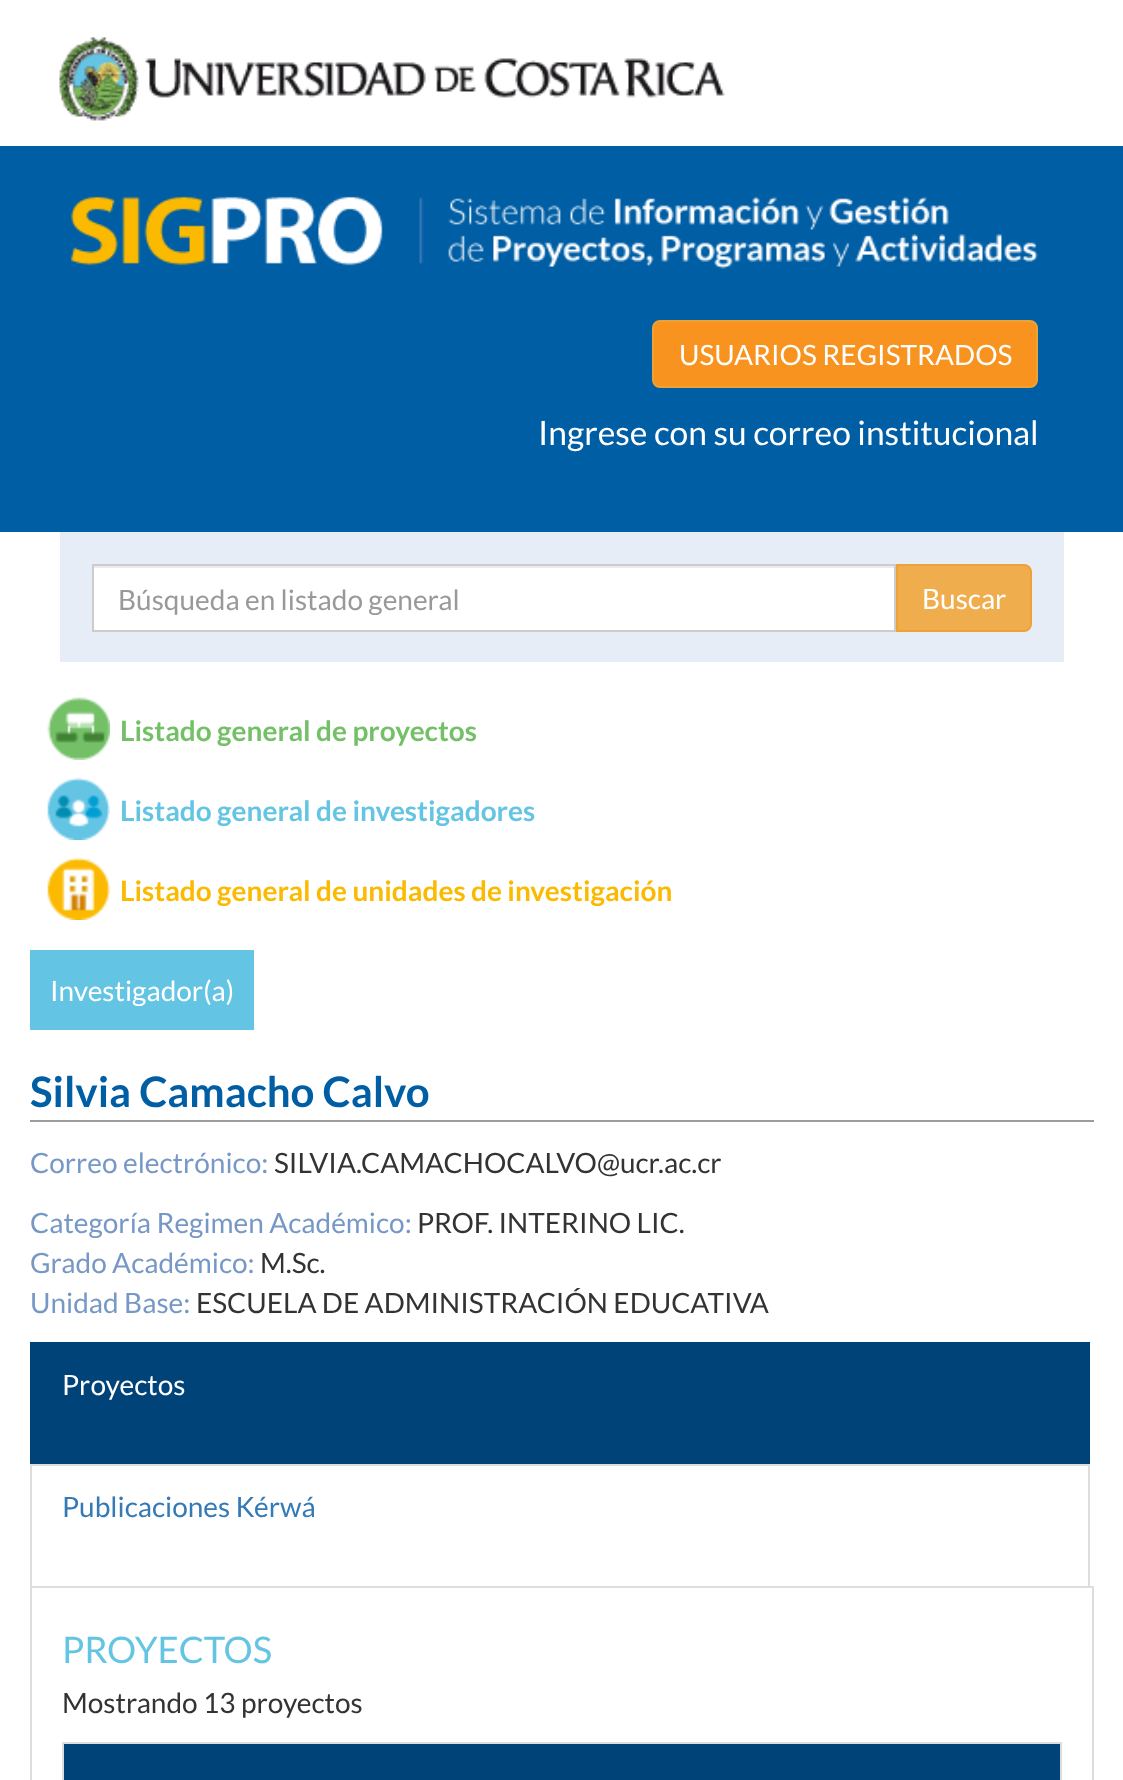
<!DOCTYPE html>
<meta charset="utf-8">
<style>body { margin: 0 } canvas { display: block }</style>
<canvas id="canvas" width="1123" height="1780"></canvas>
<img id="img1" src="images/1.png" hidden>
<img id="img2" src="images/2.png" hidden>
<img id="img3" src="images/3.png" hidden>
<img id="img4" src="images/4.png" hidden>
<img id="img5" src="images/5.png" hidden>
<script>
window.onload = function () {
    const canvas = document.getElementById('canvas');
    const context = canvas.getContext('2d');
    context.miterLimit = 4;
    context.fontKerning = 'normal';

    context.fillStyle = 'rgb(255, 255, 255)';
    context.fillRect(0, 0, 1123, 1780);
    context.drawImage(document.getElementById('img1'), 59, 37, 666, 84);
    context.fillStyle = 'rgb(0, 94, 165)';
    context.fillRect(0, 146, 1123, 386);
    context.drawImage(document.getElementById('img2'), 70, 196, 968, 73);
    context.fillStyle = 'rgb(247, 147, 30)';
    context.beginPath();
    context.roundRect(653, 321, 384, 66, 7);
    context.fill();
    context.strokeStyle = 'rgb(238, 162, 54)';
    context.lineWidth = 2;
    context.stroke();
    context.fillStyle = 'rgb(231, 237, 247)';
    context.fillRect(60, 532, 1004, 130);
    context.fillStyle = 'rgb(255, 255, 255)';
    context.fillRect(94, 568, 800, 62);
    context.fillStyle = 'rgb(236, 236, 236)';
    context.fillRect(94, 566, 800, 2);
    context.strokeStyle = 'rgb(204, 204, 204)';
    context.strokeRect(93, 565, 802, 66);
    context.fillStyle = 'rgb(240, 173, 78)';
    context.beginPath();
    context.roundRect(897, 565, 134, 66, [0, 7, 7, 0]);
    context.fill();
    context.strokeStyle = 'rgb(238, 162, 54)';
    context.stroke();
    context.drawImage(document.getElementById('img3'), 47, 697, 63, 63);
    context.drawImage(document.getElementById('img4'), 47, 777, 63, 63);
    context.drawImage(document.getElementById('img5'), 47, 857, 63, 63);
    context.fillStyle = 'rgb(100, 196, 227)';
    context.fillRect(30, 950, 224, 80);
    context.fillStyle = 'rgb(157, 157, 157)';
    context.fillRect(30, 1120, 1064, 2);
    context.fillStyle = 'rgb(221, 221, 221)';
    context.fillRect(1090, 1586, 4, 2);
    context.fillStyle = 'rgb(0, 67, 121)';
    context.fillRect(30, 1342, 1060, 122);
    context.strokeStyle = 'rgb(221, 221, 221)';
    context.strokeRect(31, 1465, 1058, 122);
    context.fillStyle = 'rgb(221, 221, 221)';
    context.fillRect(1092, 1588, 2, 192);
    context.fillRect(30, 1588, 2, 192);
    context.fillRect(62, 1742, 1000, 2);
    context.fillRect(1060, 1742, 2, 38);
    context.fillRect(62, 1742, 2, 38);
    context.fillStyle = 'rgb(0, 67, 121)';
    context.fillRect(64, 1744, 996, 36);
    context.font = '28px Lato';
    context.fillStyle = 'rgb(255, 255, 255)';
    context.fillText('USUARIOS REGISTRADOS', 679, 365);
    context.font = '33.6px Lato';
    context.fillText('Ingrese con su correo institucional', 538, 445);
    context.font = '28px Lato';
    context.fillStyle = 'rgb(153, 153, 153)';
    context.fillText('Búsqueda en listado general', 118, 610);
    context.fillStyle = 'rgb(255, 255, 255)';
    context.fillText('Buscar', 922, 609);
    context.font = 'bold 28px Lato';
    context.fillStyle = 'rgb(115, 192, 103)';
    context.fillText('Listado general de proyectos', 120, 741);
    context.fillStyle = 'rgb(100, 196, 227)';
    context.fillText('Listado general de investigadores', 120, 821);
    context.fillStyle = 'rgb(251, 186, 0)';
    context.fillText('Listado general de unidades de investigación', 120, 901);
    context.font = '28px Lato';
    context.fillStyle = 'rgb(255, 255, 255)';
    context.fillText('Investigador(a)', 50, 1001);
    context.font = 'bold 42px Lato';
    context.fillStyle = 'rgb(0, 94, 165)';
    context.fillText('Silvia Camacho Calvo', 30, 1107);
    context.font = '28px Lato';
    context.fillStyle = 'rgb(119, 152, 198)';
    context.fillText('Correo electrónico:', 30, 1173);
    context.fillStyle = 'rgb(51, 51, 51)';
    context.fillText('SILVIA.CAMACHOCALVO@ucr.ac.cr', 274, 1173);
    context.fillStyle = 'rgb(119, 152, 198)';
    context.fillText('Categoría Regimen Académico:', 30, 1233);
    context.fillStyle = 'rgb(51, 51, 51)';
    context.fillText('PROF. INTERINO LIC.', 417, 1233);
    context.fillStyle = 'rgb(119, 152, 198)';
    context.fillText('Grado Académico:', 30, 1273);
    context.fillStyle = 'rgb(51, 51, 51)';
    context.fillText('M.Sc.', 260, 1273);
    context.fillStyle = 'rgb(119, 152, 198)';
    context.fillText('Unidad Base:', 30, 1313);
    context.fillStyle = 'rgb(51, 51, 51)';
    context.fillText('ESCUELA DE ADMINISTRACIÓN EDUCATIVA', 196, 1313);
    context.fillStyle = 'rgb(255, 255, 255)';
    context.fillText('Proyectos', 62, 1395);
    context.fillStyle = 'rgb(51, 122, 183)';
    context.fillText('Publicaciones Kérwá', 62, 1517);
    context.font = '36.5px Lato';
    context.fillStyle = 'rgb(100, 196, 227)';
    context.fillText('PROYECTOS', 62, 1663);
    context.font = '28px Lato';
    context.fillStyle = 'rgb(51, 51, 51)';
    context.fillText('Mostrando 13 proyectos', 62, 1713);
};
</script>
